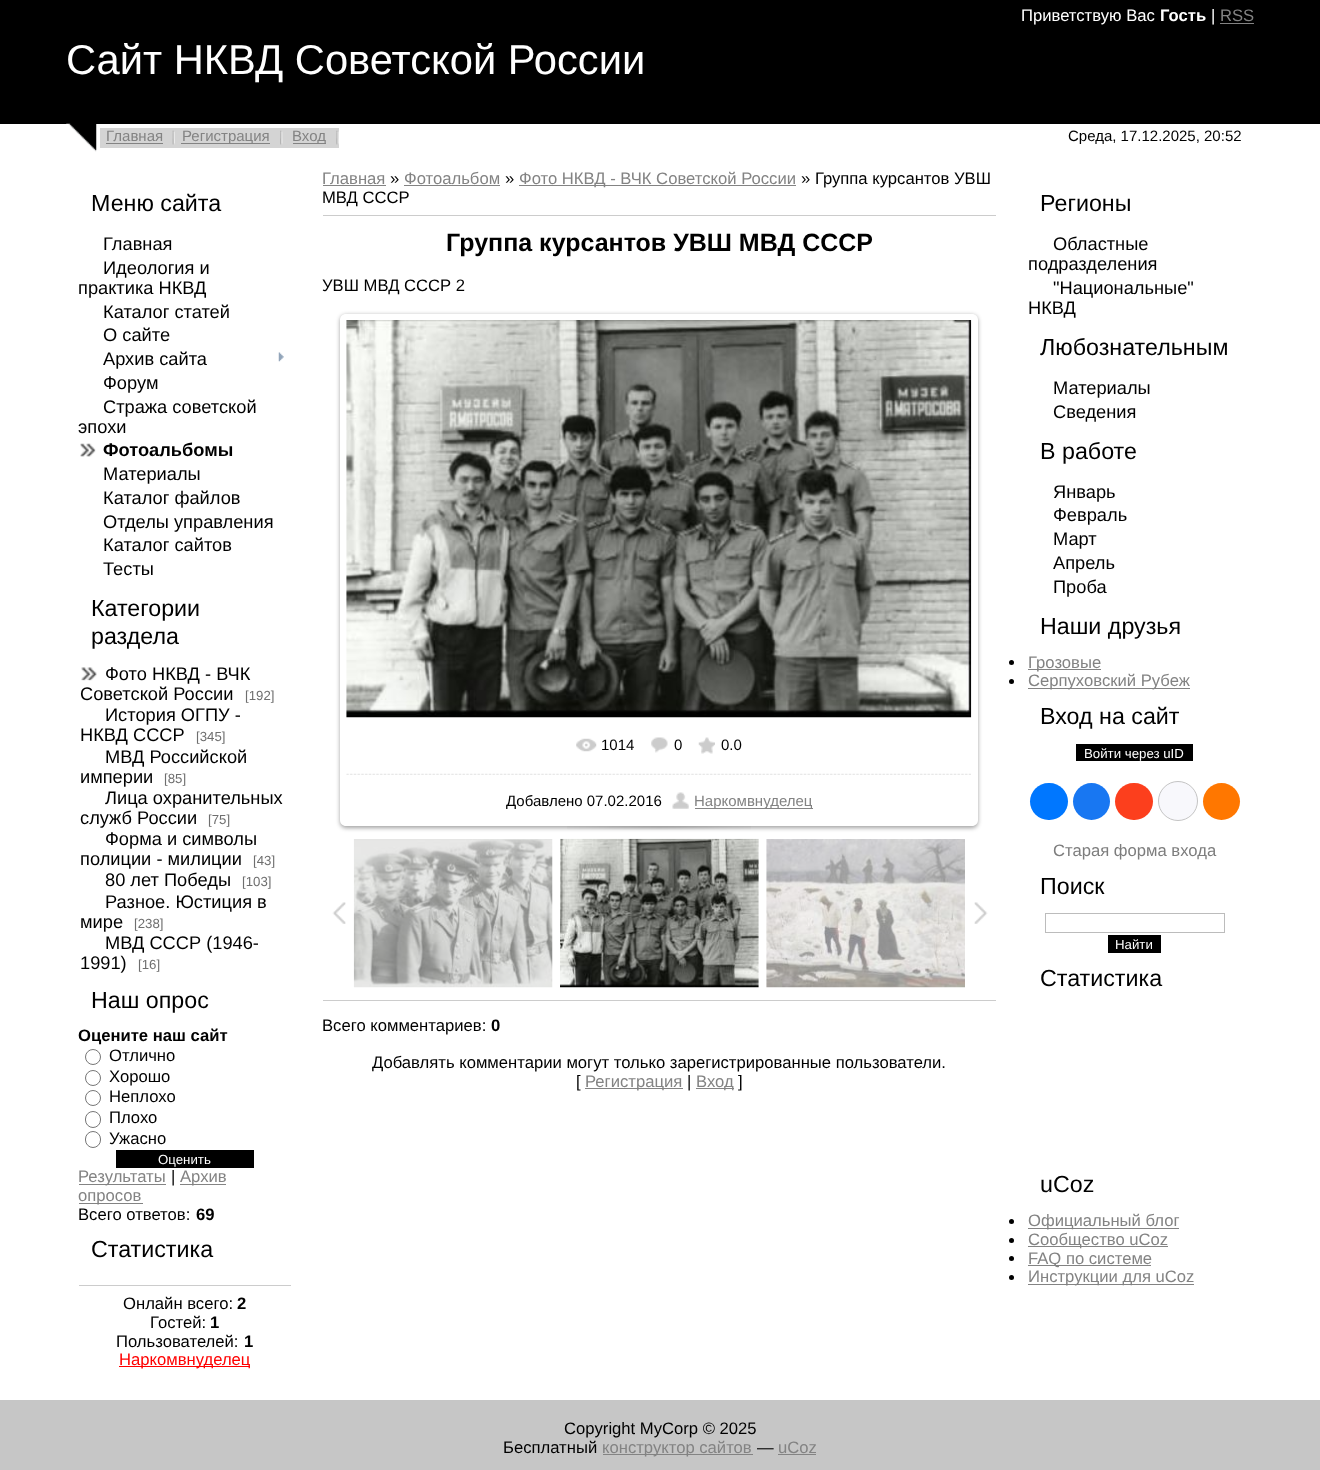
<!DOCTYPE html>
<meta charset="utf-8">
<style>body { margin: 0 } canvas { display: block }</style>
<canvas id="canvas" width="1320" height="1470"></canvas>
<img id="img1" src="images/1.png" hidden>
<img id="img2" src="images/2.png" hidden>
<img id="img3" src="images/3.png" hidden>
<img id="img4" src="images/4.png" hidden>
<img id="img5" src="images/5.png" hidden>
<img id="img6" src="images/6.png" hidden>
<img id="img7" src="images/7.png" hidden>
<img id="img8" src="images/8.png" hidden>
<img id="img9" src="images/9.png" hidden>
<img id="img10" src="images/10.png" hidden>
<img id="img11" src="images/11.png" hidden>
<img id="img12" src="images/12.png" hidden>
<img id="img13" src="images/13.png" hidden>
<img id="img14" src="images/14.png" hidden>
<img id="img15" src="images/15.png" hidden>
<img id="img16" src="images/16.png" hidden>
<img id="img17" src="images/17.png" hidden>
<img id="img18" src="images/18.png" hidden>
<img id="img19" src="images/19.png" hidden>
<script>
window.onload = function () {
    const canvas = document.getElementById('canvas');
    const context = canvas.getContext('2d');
    context.miterLimit = 4;
    context.fontKerning = 'normal';

    context.fillStyle = 'rgb(255, 255, 255)';
    context.fillRect(0, 0, 1320, 1470);
    context.fillStyle = 'rgb(0, 0, 0)';
    context.fillRect(0, 0, 1320, 124);
    context.fillStyle = 'rgb(131, 131, 131)';
    context.fillRect(1220, 23, 34, 1);
    context.drawImage(document.getElementById('img1'), 66, 123, 31, 29);
    context.fillStyle = 'rgb(212, 212, 212)';
    context.fillRect(100, 128, 239, 20);
    context.fillStyle = 'rgb(131, 131, 131)';
    context.fillRect(106, 143, 57, 1);
    context.drawImage(document.getElementById('img2'), 172, 130, 3, 15);
    context.fillRect(181, 143, 89, 1);
    context.drawImage(document.getElementById('img3'), 280, 130, 3, 15);
    context.fillRect(293, 143, 33, 1);
    context.drawImage(document.getElementById('img4'), 336, 130, 3, 15);
    context.drawImage(document.getElementById('img5'), 278, 352, 6, 10);
    context.drawImage(document.getElementById('img6'), 80, 443, 16, 14);
    context.drawImage(document.getElementById('img7'), 81, 667, 16, 14);
    context.beginPath();
    context.arc(93, 1057, 7.5, 0, 2 * Math.PI);
    context.strokeStyle = 'rgb(118, 118, 118)';
    context.stroke();
    context.beginPath();
    context.arc(93, 1078, 7.5, 0, 2 * Math.PI);
    context.stroke();
    context.beginPath();
    context.arc(93, 1098, 7.5, 0, 2 * Math.PI);
    context.stroke();
    context.beginPath();
    context.roundRect(85.5, 1111.5, 15, 16, 7.5);
    context.stroke();
    context.beginPath();
    context.roundRect(85.5, 1131.5, 15, 16, 7.5);
    context.stroke();
    context.fillStyle = 'rgb(0, 0, 0)';
    context.fillRect(116, 1150, 138, 18);
    context.fillStyle = 'rgb(131, 131, 131)';
    context.fillRect(79, 1184, 87, 1);
    context.fillRect(180, 1184, 46, 1);
    context.fillRect(79, 1203, 64, 1);
    context.fillStyle = 'rgb(204, 204, 204)';
    context.fillRect(79, 1285, 212, 1);
    context.fillStyle = 'rgb(255, 0, 0)';
    context.fillRect(119, 1366, 131, 1);
    context.fillStyle = 'rgb(131, 131, 131)';
    context.fillRect(323, 185, 63, 1);
    context.fillRect(404, 185, 96, 1);
    context.fillRect(519, 185, 277, 1);
    context.fillStyle = 'rgb(204, 204, 204)';
    context.fillRect(323, 215, 673, 1);
    context.save();
    context.beginPath();
    context.moveTo(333, 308);
    context.lineTo(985, 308);
    context.lineTo(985, 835);
    context.lineTo(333, 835);
    context.closePath();
    context.moveTo(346, 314);
    context.lineTo(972, 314);
    context.bezierCurveTo(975.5, 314, 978, 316.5, 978, 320);
    context.lineTo(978, 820);
    context.bezierCurveTo(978, 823.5, 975.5, 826, 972, 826);
    context.lineTo(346, 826);
    context.bezierCurveTo(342.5, 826, 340, 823.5, 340, 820);
    context.lineTo(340, 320);
    context.bezierCurveTo(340, 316.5, 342.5, 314, 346, 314);
    context.closePath();
    context.clip('evenodd');
    context.fillStyle = 'rgba(0, 0, 0, 0.37)';
    context.filter = 'blur(2px)';
    context.beginPath();
    context.roundRect(340, 315, 638, 513, 6);
    context.fill();
    context.filter = 'none';
    context.restore();
    context.drawImage(document.getElementById('img8'), 346, 320, 626, 398);
    context.drawImage(document.getElementById('img9'), 576, 738, 21, 14);
    context.drawImage(document.getElementById('img10'), 651, 737, 17, 16);
    context.drawImage(document.getElementById('img11'), 698, 737, 17, 17);
    context.drawImage(document.getElementById('img12'), 346, 773, 625, 2);
    context.drawImage(document.getElementById('img13'), 672, 792, 17, 17);
    context.fillStyle = 'rgb(131, 131, 131)';
    context.fillRect(695, 808, 118, 1);
    context.drawImage(document.getElementById('img14'), 567, 826, 184, 4);
    context.drawImage(document.getElementById('img15'), 332, 902, 14, 22);
    context.drawImage(document.getElementById('img16'), 353, 839, 200, 149);
    context.drawImage(document.getElementById('img17'), 560, 838, 199, 150);
    context.drawImage(document.getElementById('img18'), 766, 839, 199, 149);
    context.drawImage(document.getElementById('img19'), 974, 902, 14, 22);
    context.fillStyle = 'rgb(204, 204, 204)';
    context.fillRect(323, 1000, 673, 1);
    context.fillStyle = 'rgb(131, 131, 131)';
    context.fillRect(585, 1088, 98, 1);
    context.fillRect(696, 1088, 38, 1);
    context.fillStyle = 'rgb(0, 0, 0)';
    context.beginPath();
    context.arc(1011.5, 662.5, 2.5, 0, 2 * Math.PI);
    context.fill();
    context.fillStyle = 'rgb(131, 131, 131)';
    context.fillRect(1028, 669, 73, 1);
    context.fillStyle = 'rgb(0, 0, 0)';
    context.beginPath();
    context.arc(1011.5, 681.5, 2.5, 0, 2 * Math.PI);
    context.fill();
    context.fillStyle = 'rgb(131, 131, 131)';
    context.fillRect(1028, 688, 162, 1);
    context.fillStyle = 'rgb(0, 0, 0)';
    context.fillRect(1076, 744, 117, 17);
    context.fillStyle = 'rgb(0, 119, 255)';
    context.beginPath();
    context.roundRect(1030, 783, 38, 37, 18.5);
    context.fill();
    context.fillStyle = 'rgb(24, 119, 242)';
    context.beginPath();
    context.arc(1091.5, 801.5, 18.5, 0, 2 * Math.PI);
    context.fill();
    context.fillStyle = 'rgb(252, 63, 29)';
    context.beginPath();
    context.roundRect(1115, 783, 38, 37, 18.5);
    context.fill();
    context.fillStyle = 'rgb(248, 248, 252)';
    context.beginPath();
    context.arc(1178, 801, 19.5, 0, 2 * Math.PI);
    context.fill();
    context.strokeStyle = 'rgb(196, 196, 196)';
    context.stroke();
    context.fillStyle = 'rgb(255, 119, 0)';
    context.beginPath();
    context.arc(1221.5, 801.5, 18.5, 0, 2 * Math.PI);
    context.fill();
    context.strokeStyle = 'rgb(188, 188, 188)';
    context.strokeRect(1045.5, 913.5, 179, 19);
    context.fillStyle = 'rgb(0, 0, 0)';
    context.fillRect(1108, 935, 53, 18);
    context.beginPath();
    context.arc(1011.5, 1221.5, 2.5, 0, 2 * Math.PI);
    context.fill();
    context.fillStyle = 'rgb(131, 131, 131)';
    context.fillRect(1028, 1228, 151, 1);
    context.fillStyle = 'rgb(0, 0, 0)';
    context.beginPath();
    context.arc(1011.5, 1240.5, 2.5, 0, 2 * Math.PI);
    context.fill();
    context.fillStyle = 'rgb(131, 131, 131)';
    context.fillRect(1028, 1246, 140, 1);
    context.fillStyle = 'rgb(0, 0, 0)';
    context.beginPath();
    context.arc(1011.5, 1258.5, 2.5, 0, 2 * Math.PI);
    context.fill();
    context.fillStyle = 'rgb(131, 131, 131)';
    context.fillRect(1028, 1265, 123, 1);
    context.fillStyle = 'rgb(0, 0, 0)';
    context.beginPath();
    context.arc(1011.5, 1277.5, 2.5, 0, 2 * Math.PI);
    context.fill();
    context.fillStyle = 'rgb(131, 131, 131)';
    context.fillRect(1028, 1284, 166, 1);
    context.fillStyle = 'rgb(198, 198, 198)';
    context.fillRect(0, 1400, 1320, 70);
    context.fillStyle = 'rgb(131, 131, 131)';
    context.fillRect(603, 1454, 150, 1);
    context.fillRect(778, 1454, 38, 1);
    context.font = '16.65px Liberation Sans';
    context.fillStyle = 'rgb(255, 255, 255)';
    context.fillText('Приветствую Вас', 1021, 21);
    context.font = 'bold 16.65px Liberation Sans';
    context.fillText('Гость', 1160, 21);
    context.font = '16.65px Liberation Sans';
    context.fillText('|', 1211, 21);
    context.fillStyle = 'rgb(131, 131, 131)';
    context.fillText('RSS', 1220, 21);
    context.font = '41.7px Liberation Sans';
    context.fillStyle = 'rgb(255, 255, 255)';
    context.fillText('Сайт НКВД Советской России', 66, 74);
    context.font = '15px Liberation Sans';
    context.fillStyle = 'rgb(131, 131, 131)';
    context.fillText('Главная', 106, 141);
    context.fillText('Регистрация', 182, 141);
    context.fillText('Вход', 292, 141);
    context.fillStyle = 'rgb(0, 0, 0)';
    context.fillText('Среда, 17.12.2025, 20:52', 1068, 141);
    context.font = '23.25px Liberation Sans';
    context.fillText('Меню сайта', 91, 211);
    context.font = '18.25px Liberation Sans';
    context.fillText('Главная', 103, 250);
    context.fillText('Идеология и', 103, 274);
    context.fillText('практика НКВД', 78, 294);
    context.fillText('Каталог статей', 103, 318);
    context.fillText('О сайте', 103, 341);
    context.fillText('Архив сайта', 103, 365);
    context.fillText('Форум', 103, 389);
    context.fillText('Стража советской', 103, 413);
    context.fillText('эпохи', 78, 433);
    context.font = 'bold 18.25px Liberation Sans';
    context.fillText('Фотоальбомы', 103, 456);
    context.font = '18.25px Liberation Sans';
    context.fillText('Материалы', 103, 480);
    context.fillText('Каталог файлов', 103, 504);
    context.fillText('Отделы управления', 103, 528);
    context.fillText('Каталог сайтов', 103, 551);
    context.fillText('Тесты', 103, 575);
    context.font = '23.25px Liberation Sans';
    context.fillText('Категории', 91, 616);
    context.fillText('раздела', 91, 644);
    context.font = '18.25px Liberation Sans';
    context.fillText('Фото НКВД - ВЧК', 105, 680);
    context.fillText('Советской России', 80, 700);
    context.font = '13.25px Liberation Sans';
    context.fillStyle = 'rgb(110, 110, 110)';
    context.fillText('[192]', 245, 700);
    context.font = '18.25px Liberation Sans';
    context.fillStyle = 'rgb(0, 0, 0)';
    context.fillText('История ОГПУ -', 105, 721);
    context.fillText('НКВД СССР', 80, 741);
    context.font = '13.25px Liberation Sans';
    context.fillStyle = 'rgb(110, 110, 110)';
    context.fillText('[345]', 196, 741);
    context.font = '18.25px Liberation Sans';
    context.fillStyle = 'rgb(0, 0, 0)';
    context.fillText('МВД Российской', 105, 763);
    context.fillText('империи', 80, 783);
    context.font = '13.25px Liberation Sans';
    context.fillStyle = 'rgb(110, 110, 110)';
    context.fillText('[85]', 164, 783);
    context.font = '18.25px Liberation Sans';
    context.fillStyle = 'rgb(0, 0, 0)';
    context.fillText('Лица охранительных', 105, 804);
    context.fillText('служб России', 80, 824);
    context.font = '13.25px Liberation Sans';
    context.fillStyle = 'rgb(110, 110, 110)';
    context.fillText('[75]', 208, 824);
    context.font = '18.25px Liberation Sans';
    context.fillStyle = 'rgb(0, 0, 0)';
    context.fillText('Форма и символы', 105, 845);
    context.fillText('полиции - милиции', 80, 865);
    context.font = '13.25px Liberation Sans';
    context.fillStyle = 'rgb(110, 110, 110)';
    context.fillText('[43]', 253, 865);
    context.font = '18.25px Liberation Sans';
    context.fillStyle = 'rgb(0, 0, 0)';
    context.fillText('80 лет Победы', 105, 886);
    context.font = '13.25px Liberation Sans';
    context.fillStyle = 'rgb(110, 110, 110)';
    context.fillText('[103]', 242, 886);
    context.font = '18.25px Liberation Sans';
    context.fillStyle = 'rgb(0, 0, 0)';
    context.fillText('Разное. Юстиция в', 105, 908);
    context.fillText('мире', 80, 928);
    context.font = '13.25px Liberation Sans';
    context.fillStyle = 'rgb(110, 110, 110)';
    context.fillText('[238]', 134, 928);
    context.font = '18.25px Liberation Sans';
    context.fillStyle = 'rgb(0, 0, 0)';
    context.fillText('МВД СССР (1946-', 105, 949);
    context.fillText('1991)', 80, 969);
    context.font = '13.25px Liberation Sans';
    context.fillStyle = 'rgb(110, 110, 110)';
    context.fillText('[16]', 138, 969);
    context.font = '23.25px Liberation Sans';
    context.fillStyle = 'rgb(0, 0, 0)';
    context.fillText('Наш опрос', 91, 1008);
    context.font = 'bold 16.65px Liberation Sans';
    context.fillText('Оцените наш сайт', 78, 1041);
    context.font = '16.65px Liberation Sans';
    context.fillText('Отлично', 109, 1061);
    context.fillText('Хорошо', 109, 1082);
    context.fillText('Неплохо', 109, 1102);
    context.fillText('Плохо', 109, 1123);
    context.fillText('Ужасно', 109, 1144);
    context.font = '13.25px Liberation Sans';
    context.fillStyle = 'rgb(255, 255, 255)';
    context.fillText('Оценить', 158, 1164);
    context.font = '16.65px Liberation Sans';
    context.fillStyle = 'rgb(131, 131, 131)';
    context.fillText('Результаты', 78, 1182);
    context.fillStyle = 'rgb(0, 0, 0)';
    context.fillText('|', 171, 1182);
    context.fillStyle = 'rgb(131, 131, 131)';
    context.fillText('Архив', 180, 1182);
    context.fillText('опросов', 78, 1201);
    context.fillStyle = 'rgb(0, 0, 0)';
    context.fillText('Всего ответов:', 78, 1220);
    context.font = 'bold 16.65px Liberation Sans';
    context.fillText('69', 196, 1220);
    context.font = '23.25px Liberation Sans';
    context.fillText('Статистика', 91, 1257);
    context.font = '16.65px Liberation Sans';
    context.fillText('Онлайн всего:', 123, 1309);
    context.font = 'bold 16.65px Liberation Sans';
    context.fillText('2', 237, 1309);
    context.font = '16.65px Liberation Sans';
    context.fillText('Гостей:', 150, 1328);
    context.font = 'bold 16.65px Liberation Sans';
    context.fillText('1', 210, 1328);
    context.font = '16.65px Liberation Sans';
    context.fillText('Пользователей:', 116, 1347);
    context.font = 'bold 16.65px Liberation Sans';
    context.fillText('1', 244, 1347);
    context.font = '16.65px Liberation Sans';
    context.fillStyle = 'rgb(255, 0, 0)';
    context.fillText('Наркомвнуделец', 119, 1365);
    context.fillStyle = 'rgb(131, 131, 131)';
    context.fillText('Главная', 322, 184);
    context.fillStyle = 'rgb(0, 0, 0)';
    context.fillText('»', 390, 184);
    context.fillStyle = 'rgb(131, 131, 131)';
    context.fillText('Фотоальбом', 404, 184);
    context.fillStyle = 'rgb(0, 0, 0)';
    context.fillText('»', 505, 184);
    context.fillStyle = 'rgb(131, 131, 131)';
    context.fillText('Фото НКВД - ВЧК Советской России', 519, 184);
    context.fillStyle = 'rgb(0, 0, 0)';
    context.fillText('» Группа курсантов УВШ', 801, 184);
    context.fillText('МВД СССР', 322, 203);
    context.font = 'bold 25px Liberation Sans';
    context.fillText('Группа курсантов УВШ МВД СССР', 446, 251);
    context.font = '16.65px Liberation Sans';
    context.fillText('УВШ МВД СССР 2', 322, 291);
    context.font = '15px Liberation Sans';
    context.fillText('1014', 601, 750);
    context.fillText('0', 674, 750);
    context.fillText('0.0', 721, 750);
    context.fillText('Добавлено 07.02.2016', 506, 806);
    context.fillStyle = 'rgb(131, 131, 131)';
    context.fillText('Наркомвнуделец', 694, 806);
    context.font = '16.65px Liberation Sans';
    context.fillStyle = 'rgb(0, 0, 0)';
    context.fillText('Всего комментариев:', 322, 1031);
    context.font = 'bold 16.65px Liberation Sans';
    context.fillText('0', 491, 1031);
    context.font = '16.65px Liberation Sans';
    context.fillText('Добавлять комментарии могут только зарегистрированные пользователи.', 372, 1068);
    context.fillText('[', 576, 1087);
    context.fillStyle = 'rgb(131, 131, 131)';
    context.fillText('Регистрация', 585, 1087);
    context.fillStyle = 'rgb(0, 0, 0)';
    context.fillText('|', 687, 1087);
    context.fillStyle = 'rgb(131, 131, 131)';
    context.fillText('Вход', 696, 1087);
    context.fillStyle = 'rgb(0, 0, 0)';
    context.fillText(']', 738, 1087);
    context.font = '23.25px Liberation Sans';
    context.fillText('Регионы', 1040, 211);
    context.font = '18.25px Liberation Sans';
    context.fillText('Областные', 1053, 250);
    context.fillText('подразделения', 1028, 270);
    context.fillText('"Национальныe"', 1053, 294);
    context.fillText('НКВД', 1028, 314);
    context.font = '23.25px Liberation Sans';
    context.fillText('Любознательным', 1040, 355);
    context.font = '18.25px Liberation Sans';
    context.fillText('Материалы', 1053, 394);
    context.fillText('Сведения', 1053, 418);
    context.font = '23.25px Liberation Sans';
    context.fillText('В работе', 1040, 459);
    context.font = '18.25px Liberation Sans';
    context.fillText('Январь', 1053, 498);
    context.fillText('Февраль', 1053, 521);
    context.fillText('Март', 1053, 545);
    context.fillText('Апрель', 1053, 569);
    context.fillText('Проба', 1053, 593);
    context.font = '23.25px Liberation Sans';
    context.fillText('Наши друзья', 1040, 634);
    context.font = '16.65px Liberation Sans';
    context.fillStyle = 'rgb(131, 131, 131)';
    context.fillText('Грозовые', 1028, 668);
    context.fillText('Серпуховский Рубеж', 1028, 686);
    context.font = '23.25px Liberation Sans';
    context.fillStyle = 'rgb(0, 0, 0)';
    context.fillText('Вход на сайт', 1040, 724);
    context.font = '13.25px Liberation Sans';
    context.fillStyle = 'rgb(255, 255, 255)';
    context.fillText('Войти через uID', 1084, 758);
    context.font = '16.65px Liberation Sans';
    context.fillStyle = 'rgb(125, 125, 125)';
    context.fillText('Старая форма входа', 1053, 856);
    context.font = '23.25px Liberation Sans';
    context.fillStyle = 'rgb(0, 0, 0)';
    context.fillText('Поиск', 1040, 894);
    context.font = '13.25px Liberation Sans';
    context.fillStyle = 'rgb(255, 255, 255)';
    context.fillText('Найти', 1115, 949);
    context.font = '23.25px Liberation Sans';
    context.fillStyle = 'rgb(0, 0, 0)';
    context.fillText('Статистика', 1040, 986);
    context.fillText('uCoz', 1040, 1192);
    context.font = '16.65px Liberation Sans';
    context.fillStyle = 'rgb(131, 131, 131)';
    context.fillText('Официальный блог', 1028, 1226);
    context.fillText('Сообщество uCoz', 1028, 1245);
    context.fillText('FAQ по системе', 1028, 1264);
    context.fillText('Инструкции для uCoz', 1028, 1282);
    context.fillStyle = 'rgb(0, 0, 0)';
    context.fillText('Copyright MyCorp © 2025', 564, 1434);
    context.fillText('Бесплатный', 503, 1453);
    context.fillStyle = 'rgb(131, 131, 131)';
    context.fillText('конструктор сайтов', 602, 1453);
    context.fillStyle = 'rgb(0, 0, 0)';
    context.fillText('—', 757, 1453);
    context.fillStyle = 'rgb(131, 131, 131)';
    context.fillText('uCoz', 778, 1453);
};
</script>
